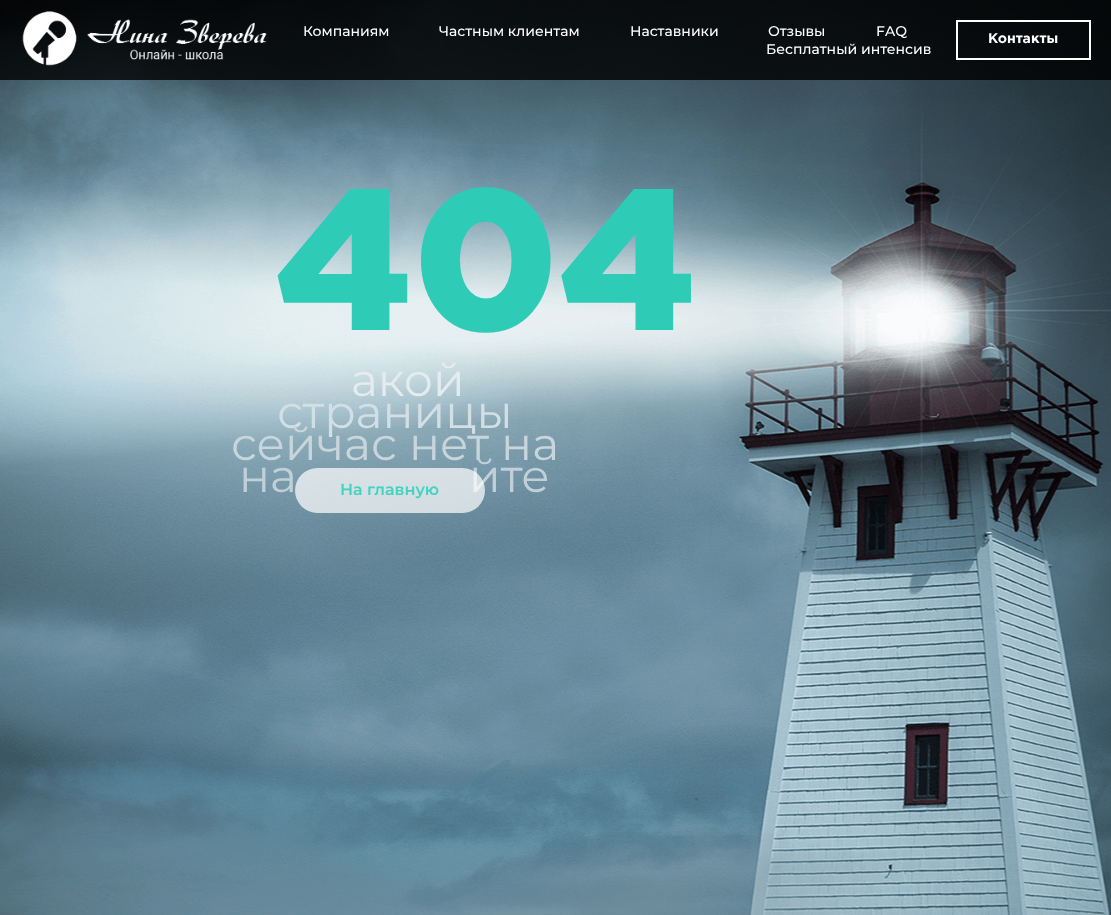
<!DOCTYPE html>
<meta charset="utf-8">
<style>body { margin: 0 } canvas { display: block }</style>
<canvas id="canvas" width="1111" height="915"></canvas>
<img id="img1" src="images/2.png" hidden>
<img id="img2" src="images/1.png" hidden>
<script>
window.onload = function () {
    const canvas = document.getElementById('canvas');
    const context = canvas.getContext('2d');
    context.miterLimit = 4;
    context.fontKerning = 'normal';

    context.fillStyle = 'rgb(255, 255, 255)';
    context.fillRect(0, 0, 1111, 915);
    context.drawImage(document.getElementById('img1'), 0, 0, 1111, 915);
    context.fillStyle = 'rgba(0, 0, 0, 0.8)';
    context.fillRect(0, 0, 1111, 80);
    context.drawImage(document.getElementById('img2'), 22, 11, 245, 55);
    context.strokeStyle = 'rgb(255, 255, 255)';
    context.lineWidth = 2;
    context.strokeRect(957, 21, 133, 38);
    context.font = '500 14px Montserrat';
    context.fillStyle = 'rgb(255, 255, 255)';
    context.fillText('Компаниям', 303, 36);
    context.fillText('Частным клиентам', 439, 36);
    context.fillText('Наставники', 630, 36);
    context.fillText('Отзывы', 768, 36);
    context.fillText('FAQ', 876, 36);
    context.fillText('Бесплатный интенсив', 766, 54);
    context.font = 'bold 14px Gotham';
    context.fillText('Контакты', 988, 43);
    context.font = '900 200px Gotham';
    context.fillStyle = 'rgb(46, 204, 183)';
    context.fillText('404', 275, 330);
    context.font = '46px Montserrat';
    context.fillStyle = 'rgb(227, 236, 239)';
    context.fillText('акой', 351, 396);
    context.fillStyle = 'rgb(210, 223, 228)';
    context.fillText('страницы', 277, 428);
    context.fillStyle = 'rgb(200, 214, 220)';
    context.fillText('сейчас нет на', 231, 460);
    context.fillStyle = 'rgb(193, 208, 216)';
    context.fillText('на', 239, 492);
    context.fillText('йте', 469, 492);
    context.fillStyle = 'rgba(255, 255, 255, 0.7)';
    context.beginPath();
    context.roundRect(295, 468, 190, 45, 22.5);
    context.fill();
    context.font = '600 16px Montserrat';
    context.fillStyle = 'rgb(65, 211, 190)';
    context.fillText('На главную', 340, 495);
};
</script>
